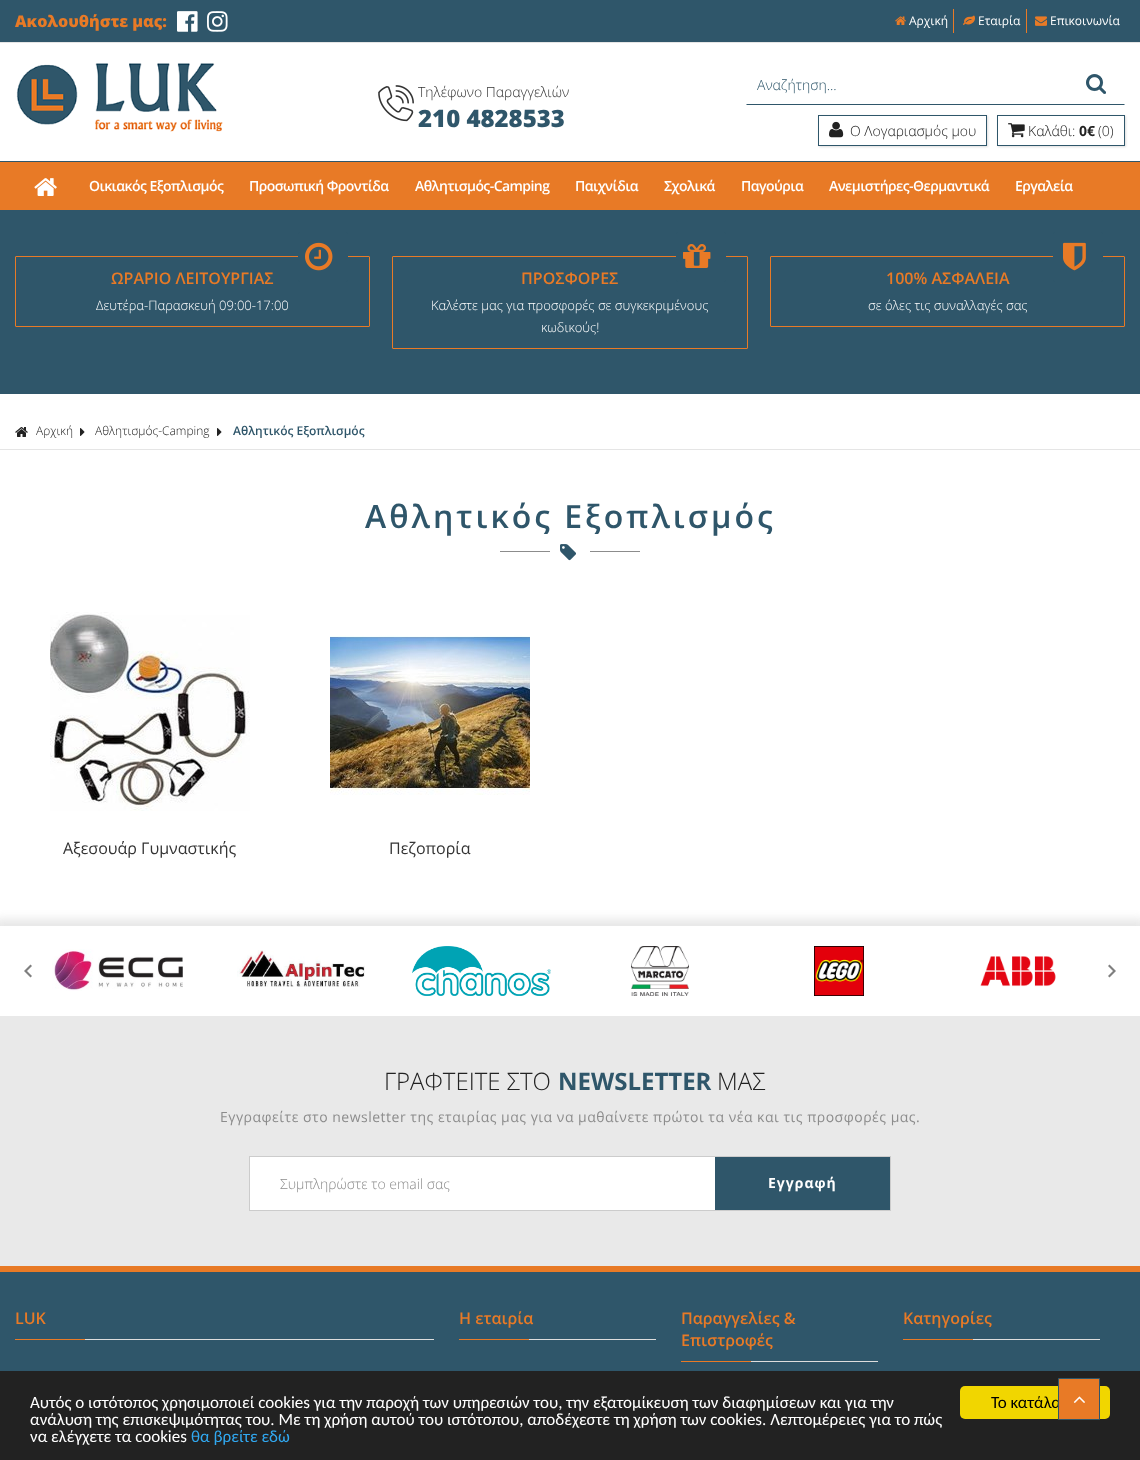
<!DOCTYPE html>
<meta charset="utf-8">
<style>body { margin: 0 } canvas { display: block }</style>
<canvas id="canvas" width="1140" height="1460"></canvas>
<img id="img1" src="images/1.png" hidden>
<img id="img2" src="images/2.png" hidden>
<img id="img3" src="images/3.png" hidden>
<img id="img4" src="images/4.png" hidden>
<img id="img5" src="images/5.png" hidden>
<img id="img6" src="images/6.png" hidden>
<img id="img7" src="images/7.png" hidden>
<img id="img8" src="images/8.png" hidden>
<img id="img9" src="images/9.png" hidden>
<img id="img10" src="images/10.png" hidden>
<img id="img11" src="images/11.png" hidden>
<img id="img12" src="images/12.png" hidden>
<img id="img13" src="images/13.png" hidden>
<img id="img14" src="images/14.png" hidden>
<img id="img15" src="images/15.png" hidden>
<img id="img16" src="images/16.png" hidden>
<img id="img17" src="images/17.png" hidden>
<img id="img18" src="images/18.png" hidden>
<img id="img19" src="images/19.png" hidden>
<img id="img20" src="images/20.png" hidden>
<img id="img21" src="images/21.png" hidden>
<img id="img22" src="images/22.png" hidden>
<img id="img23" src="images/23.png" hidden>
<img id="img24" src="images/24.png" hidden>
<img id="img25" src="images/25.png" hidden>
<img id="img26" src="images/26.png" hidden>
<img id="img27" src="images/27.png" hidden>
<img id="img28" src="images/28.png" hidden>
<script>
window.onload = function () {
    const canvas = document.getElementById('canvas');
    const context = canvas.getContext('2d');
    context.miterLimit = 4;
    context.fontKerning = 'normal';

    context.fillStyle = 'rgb(255, 255, 255)';
    context.fillRect(0, 0, 1140, 1460);
    context.fillStyle = 'rgb(47, 86, 106)';
    context.fillRect(0, 0, 1140, 42);
    context.fillStyle = 'rgb(229, 229, 229)';
    context.fillRect(0, 42, 1140, 1);
    context.drawImage(document.getElementById('img1'), 177, 11, 21, 21);
    context.drawImage(document.getElementById('img2'), 207, 11, 21, 21);
    context.fillStyle = 'rgb(232, 122, 38)';
    context.fillRect(953, 9, 1, 24);
    context.drawImage(document.getElementById('img3'), 895, 16, 11, 9);
    context.fillRect(1026, 9, 1, 24);
    context.drawImage(document.getElementById('img4'), 963, 15, 12, 10);
    context.drawImage(document.getElementById('img5'), 1035, 16, 12, 10);
    context.drawImage(document.getElementById('img6'), 16, 63, 207, 69);
    context.drawImage(document.getElementById('img7'), 378, 85, 36, 37);
    context.fillStyle = 'rgb(47, 86, 106)';
    context.beginPath();
    context.moveTo(1125, 105);
    context.lineTo(746, 105);
    context.lineTo(747, 104);
    context.lineTo(1124, 104);
    context.closePath();
    context.fill();
    context.drawImage(document.getElementById('img8'), 1086, 74, 20, 20);
    context.save();
    context.beginPath();
    context.moveTo(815, 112);
    context.lineTo(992, 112);
    context.lineTo(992, 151);
    context.lineTo(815, 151);
    context.closePath();
    context.moveTo(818, 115);
    context.lineTo(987, 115);
    context.lineTo(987, 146);
    context.lineTo(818, 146);
    context.closePath();
    context.clip('evenodd');
    context.fillStyle = 'rgb(221, 221, 221)';
    context.filter = 'blur(1px)';
    context.beginPath();
    context.rect(819, 116, 169, 31);
    context.fill();
    context.filter = 'none';
    context.restore();
    context.strokeStyle = 'rgb(47, 86, 106)';
    context.strokeRect(818.5, 115.5, 168, 30);
    context.drawImage(document.getElementById('img9'), 829, 121, 15, 17);
    context.save();
    context.beginPath();
    context.moveTo(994, 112);
    context.lineTo(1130, 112);
    context.lineTo(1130, 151);
    context.lineTo(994, 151);
    context.closePath();
    context.moveTo(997, 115);
    context.lineTo(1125, 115);
    context.lineTo(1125, 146);
    context.lineTo(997, 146);
    context.closePath();
    context.clip('evenodd');
    context.fillStyle = 'rgb(221, 221, 221)';
    context.filter = 'blur(1px)';
    context.beginPath();
    context.rect(998, 116, 128, 31);
    context.fill();
    context.filter = 'none';
    context.restore();
    context.strokeRect(997.5, 115.5, 127, 30);
    context.drawImage(document.getElementById('img10'), 1008, 123, 17, 15);
    context.fillStyle = 'rgb(232, 122, 38)';
    context.fillRect(0, 162, 1140, 48);
    context.fillStyle = 'rgb(47, 86, 106)';
    context.fillRect(0, 161, 1140, 1);
    context.drawImage(document.getElementById('img11'), 34, 178, 23, 18);
    context.fillRect(0, 210, 1140, 184);
    context.beginPath();
    context.roundRect(15.5, 256.5, 354, 70, 0.5);
    context.strokeStyle = 'rgb(232, 122, 38)';
    context.stroke();
    context.beginPath();
    context.roundRect(298, 232, 50, 50, 2);
    context.fill();
    context.drawImage(document.getElementById('img12'), 305, 242, 28, 29);
    context.beginPath();
    context.roundRect(392.5, 256.5, 355, 92, 0.5);
    context.stroke();
    context.beginPath();
    context.roundRect(676, 232, 50, 50, 2);
    context.fill();
    context.drawImage(document.getElementById('img13'), 683, 244, 28, 24);
    context.beginPath();
    context.roundRect(770.5, 256.5, 354, 70, 0.5);
    context.stroke();
    context.beginPath();
    context.roundRect(1053, 232, 50, 50, 2);
    context.fill();
    context.drawImage(document.getElementById('img14'), 1063, 242, 23, 29);
    context.fillStyle = 'rgb(229, 229, 229)';
    context.fillRect(0, 449, 1140, 1);
    context.drawImage(document.getElementById('img15'), 15, 427, 13, 10);
    context.drawImage(document.getElementById('img16'), 80, 428, 5, 8);
    context.drawImage(document.getElementById('img16'), 217, 428, 5, 8);
    context.fillStyle = 'rgb(140, 140, 140)';
    context.fillRect(500, 551, 140, 1);
    context.fillStyle = 'rgb(255, 255, 255)';
    context.fillRect(550, 551, 40, 1);
    context.drawImage(document.getElementById('img17'), 560, 544, 16, 17);
    context.drawImage(document.getElementById('img18'), 50, 612, 200, 199);
    context.drawImage(document.getElementById('img19'), 330, 635, 200, 160);
    context.save();
    context.beginPath();
    context.rect(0, 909, 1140, 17);
    context.clip();
    context.fillStyle = 'rgb(231, 231, 231)';
    context.filter = 'blur(5px)';
    context.beginPath();
    context.rect(-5, 919, 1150, 100);
    context.fill();
    context.filter = 'none';
    context.restore();
    context.drawImage(document.getElementById('img20'), 52, 949, 131, 42);
    context.drawImage(document.getElementById('img21'), 237, 950, 128, 37);
    context.drawImage(document.getElementById('img22'), 412, 946, 139, 50);
    context.drawImage(document.getElementById('img23'), 631, 946, 58, 50);
    context.drawImage(document.getElementById('img24'), 814, 946, 50, 50);
    context.drawImage(document.getElementById('img25'), 980, 956, 76, 31);
    context.drawImage(document.getElementById('img26'), 24, 964, 8, 14);
    context.drawImage(document.getElementById('img27'), 1108, 964, 8, 14);
    context.fillStyle = 'rgb(47, 86, 106)';
    context.fillRect(0, 1272, 1140, 99);
    context.fillStyle = 'rgb(233, 233, 233)';
    context.fillRect(0, 1016, 1140, 250);
    context.strokeStyle = 'rgb(204, 204, 204)';
    context.strokeRect(249.5, 1156.5, 641, 54);
    context.fillStyle = 'rgb(255, 255, 255)';
    context.fillRect(250, 1157, 465, 53);
    context.fillStyle = 'rgb(47, 86, 106)';
    context.fillRect(715, 1157, 175, 53);
    context.fillStyle = 'rgb(232, 122, 38)';
    context.fillRect(0, 1266, 1140, 6);
    context.fillStyle = 'rgb(221, 221, 221)';
    context.fillRect(85, 1339, 349, 1);
    context.fillStyle = 'rgb(232, 122, 38)';
    context.fillRect(15, 1339, 70, 1);
    context.fillStyle = 'rgb(221, 221, 221)';
    context.fillRect(529, 1339, 127, 1);
    context.fillStyle = 'rgb(232, 122, 38)';
    context.fillRect(459, 1339, 70, 1);
    context.fillStyle = 'rgb(221, 221, 221)';
    context.fillRect(751, 1361, 127, 1);
    context.fillStyle = 'rgb(232, 122, 38)';
    context.fillRect(681, 1361, 70, 1);
    context.fillStyle = 'rgb(221, 221, 221)';
    context.fillRect(973, 1339, 127, 1);
    context.fillStyle = 'rgb(232, 122, 38)';
    context.fillRect(903, 1339, 70, 1);
    context.fillStyle = 'rgb(34, 34, 34)';
    context.fillRect(0, 1371, 1140, 89);
    context.fillStyle = 'rgb(241, 214, 0)';
    context.beginPath();
    context.roundRect(960, 1386, 150, 33, 5);
    context.fill();
    context.font = '800 16px Open Sans';
    context.fillStyle = 'rgb(232, 122, 38)';
    context.fillText('Ακολουθήστε μας:', 15, 27);
    context.font = '12px Open Sans';
    context.fillStyle = 'rgb(255, 255, 255)';
    context.fillText('Αρχική', 909, 25);
    context.fillText('Εταιρία', 978, 25);
    context.fillText('Επικοινωνία', 1050, 25);
    context.font = '300 14px Open Sans';
    context.fillStyle = 'rgb(51, 51, 51)';
    context.fillText('Τηλέφωνο Παραγγελιών', 418, 97);
    context.font = '800 24px Open Sans';
    context.fillStyle = 'rgb(47, 86, 106)';
    context.fillText('210 4828533', 418, 127);
    context.font = '300 14px Open Sans';
    context.fillText('Αναζήτηση...', 757, 90);
    context.fillStyle = 'rgb(34, 34, 34)';
    context.fillText('Ο Λογαριασμός μου', 850, 136);
    context.fillText('Καλάθι:', 1028, 136);
    context.font = 'bold 14px Open Sans';
    context.fillText('0€', 1079, 136);
    context.font = '300 14px Open Sans';
    context.fillText('(0)', 1098, 136);
    context.letterSpacing = '-0.55px';
    context.font = '600 14px Open Sans';
    context.fillStyle = 'rgb(255, 255, 255)';
    context.fillText('Οικιακός Εξοπλισμός', 89, 191);
    context.fillText('Προσωπική Φροντίδα', 249, 191);
    context.fillText('Αθλητισμός-Camping', 415, 191);
    context.fillText('Παιχνίδια', 575, 191);
    context.fillText('Σχολικά', 664, 191);
    context.fillText('Παγούρια', 741, 191);
    context.fillText('Ανεμιστήρες-Θερμαντικά', 829, 191);
    context.fillText('Εργαλεία', 1015, 191);
    context.letterSpacing = '0px';
    context.font = '600 16px Open Sans';
    context.fillStyle = 'rgb(232, 122, 38)';
    context.fillText('ΩΡΑΡΙΟ ΛΕΙΤΟΥΡΓΙΑΣ', 111, 284);
    context.font = '300 13px Open Sans';
    context.fillStyle = 'rgb(255, 255, 255)';
    context.fillText('Δευτέρα-Παρασκευή 09:00-17:00', 96, 310);
    context.font = '600 16px Open Sans';
    context.fillStyle = 'rgb(232, 122, 38)';
    context.fillText('ΠΡΟΣΦΟΡΕΣ', 521, 284);
    context.font = '300 13px Open Sans';
    context.fillStyle = 'rgb(255, 255, 255)';
    context.fillText('Καλέστε μας για προσφορές σε συγκεκριμένους', 431, 310);
    context.fillText('κωδικούς!', 541, 332);
    context.font = '600 16px Open Sans';
    context.fillStyle = 'rgb(232, 122, 38)';
    context.fillText('100% ΑΣΦΑΛΕΙΑ', 886, 284);
    context.font = '300 13px Open Sans';
    context.fillStyle = 'rgb(255, 255, 255)';
    context.fillText('σε όλες τις συναλλαγές σας', 868, 310);
    context.font = '300 12px Open Sans';
    context.fillStyle = 'rgb(34, 34, 34)';
    context.fillText('Αρχική', 36, 435);
    context.fillText('Αθλητισμός-Camping', 95, 435);
    context.font = '600 12px Open Sans';
    context.fillStyle = 'rgb(47, 86, 106)';
    context.fillText('Αθλητικός Εξοπλισμός', 233, 435);
    context.letterSpacing = '3px';
    context.font = '600 32px Open Sans';
    context.fillText('Αθλητικός Εξοπλισμός', 365, 528);
    context.letterSpacing = '0px';
    context.font = '16px Open Sans';
    context.fillStyle = 'rgb(51, 51, 51)';
    context.fillText('Αξεσουάρ Γυμναστικής', 63, 854);
    context.fillText('Πεζοπορία', 389, 854);
    context.font = '300 24px Open Sans';
    context.fillStyle = 'rgb(34, 34, 34)';
    context.fillText('ΓΡΑΦΤΕΙΤΕ ΣΤΟ', 384, 1090);
    context.font = 'bold 24px Open Sans';
    context.fillStyle = 'rgb(47, 86, 106)';
    context.fillText('NEWSLETTER', 558, 1090);
    context.font = '300 24px Open Sans';
    context.fillStyle = 'rgb(34, 34, 34)';
    context.fillText('ΜΑΣ', 717, 1090);
    context.letterSpacing = '0.5px';
    context.font = '14px Open Sans';
    context.fillStyle = 'rgb(140, 140, 140)';
    context.fillText('Εγγραφείτε στο newsletter της εταιρίας μας για να μαθαίνετε πρώτοι τα νέα και τις προσφορές μας.', 220, 1122);
    context.letterSpacing = '0px';
    context.font = '300 14px Open Sans';
    context.fillText('Συμπληρώστε το email σας', 280, 1189);
    context.letterSpacing = '1px';
    context.font = 'bold 14px Open Sans';
    context.fillStyle = 'rgb(255, 255, 255)';
    context.fillText('Εγγραφή', 768, 1188);
    context.letterSpacing = '0px';
    context.font = '600 16px Open Sans';
    context.fillStyle = 'rgb(232, 122, 38)';
    context.fillText('LUK', 15, 1324);
    context.fillText('Η εταιρία', 459, 1324);
    context.fillText('Παραγγελίες &', 681, 1324);
    context.fillText('Επιστροφές', 681, 1346);
    context.fillText('Κατηγορίες', 903, 1324);
    context.font = '17px Carlito';
    context.fillStyle = 'rgb(255, 255, 255)';
    context.fillText('Αυτός ο ιστότοπος χρησιμοποιεί cookies για την παροχή των υπηρεσιών του, την εξατομίκευση των διαφημίσεων και για την', 30, 1408);
    context.fillText('ανάλυση της επισκεψιμότητας του. Με τη χρήση αυτού του ιστότοπου, αποδέχεστε τη χρήση των cookies. Λεπτομέρειες για το πώς', 30, 1425);
    context.fillText('να ελέγχετε τα cookies', 30, 1442);
    context.fillStyle = 'rgb(49, 168, 240)';
    context.fillText('θα βρείτε εδώ', 191, 1442);
    context.fillStyle = 'rgb(0, 0, 0)';
    context.fillText('Το κατάλα', 991, 1408);
    context.fillStyle = 'rgb(232, 122, 38)';
    context.beginPath();
    context.rect(1058.5, 1378.5, 41, 41);
    context.fill();
    context.strokeStyle = 'rgb(47, 86, 106)';
    context.stroke();
    context.drawImage(document.getElementById('img28'), 1073, 1396, 12, 7);
};
</script>
